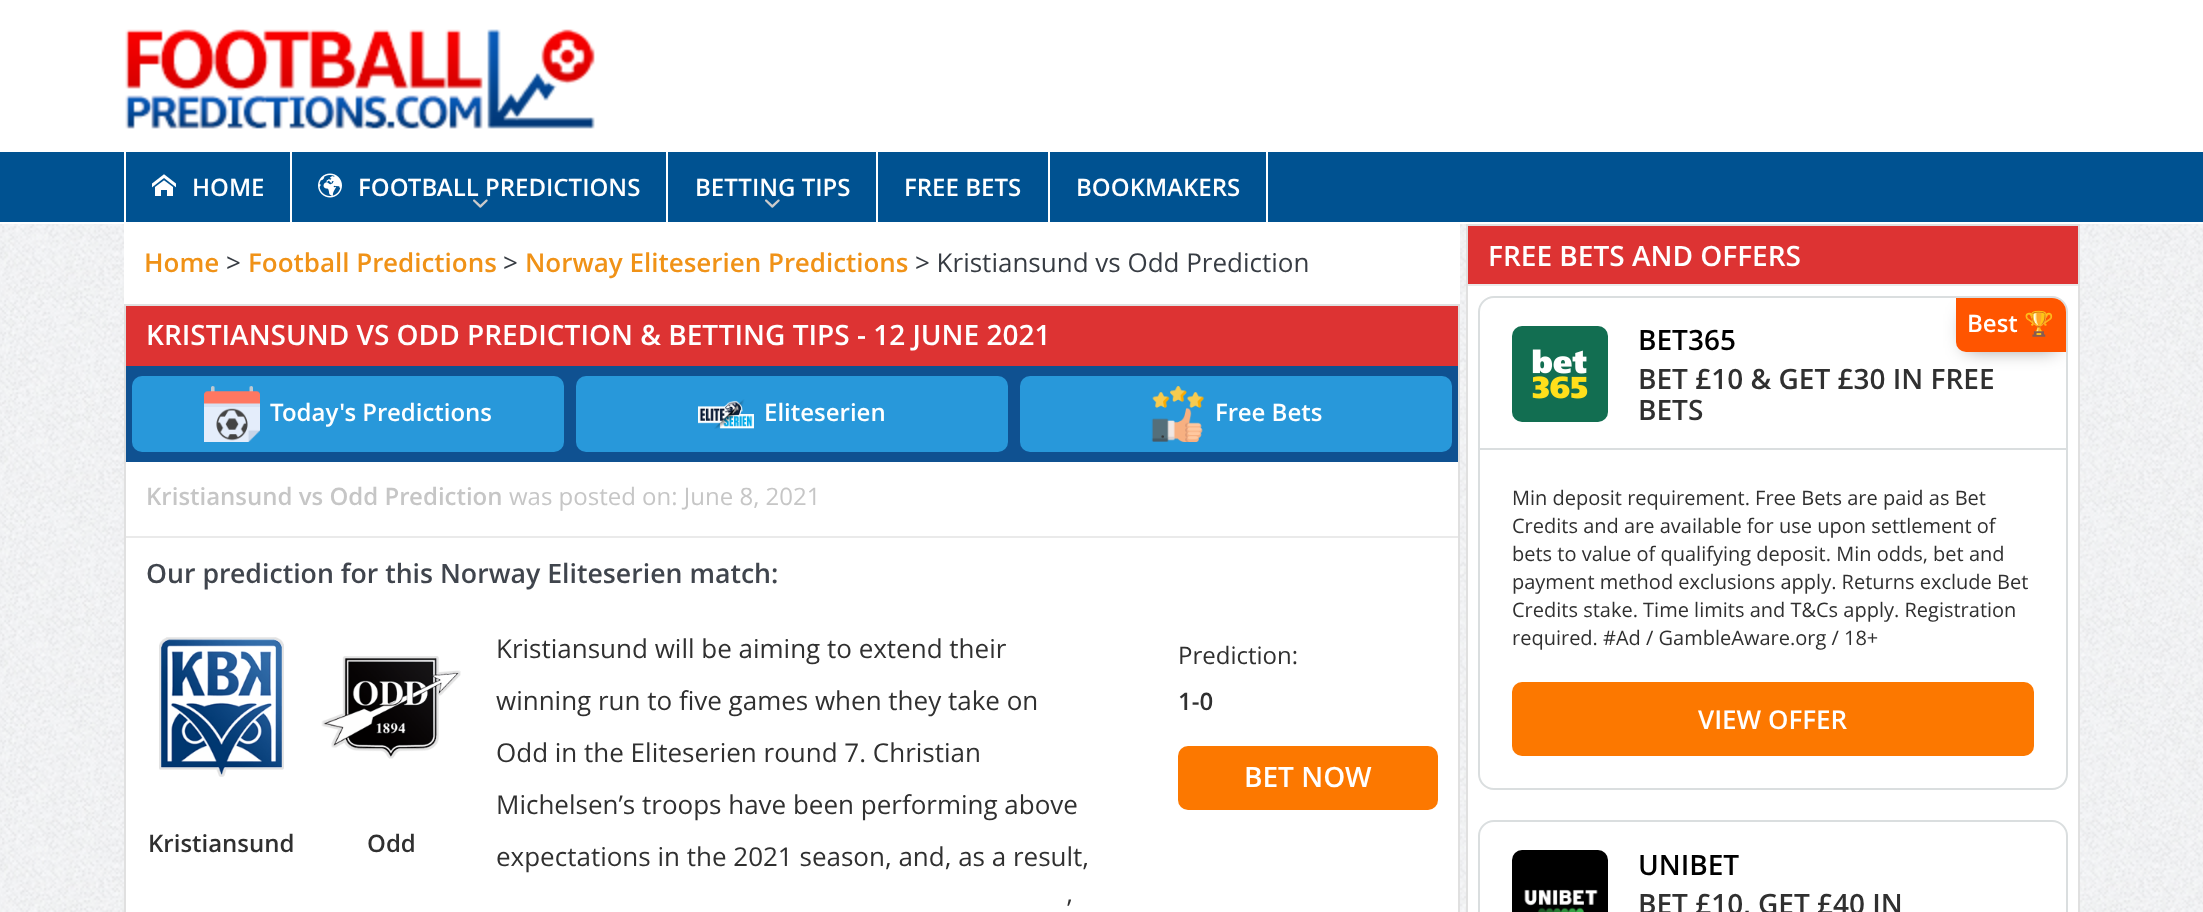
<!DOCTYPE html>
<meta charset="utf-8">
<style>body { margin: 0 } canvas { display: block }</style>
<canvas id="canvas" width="2203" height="912"></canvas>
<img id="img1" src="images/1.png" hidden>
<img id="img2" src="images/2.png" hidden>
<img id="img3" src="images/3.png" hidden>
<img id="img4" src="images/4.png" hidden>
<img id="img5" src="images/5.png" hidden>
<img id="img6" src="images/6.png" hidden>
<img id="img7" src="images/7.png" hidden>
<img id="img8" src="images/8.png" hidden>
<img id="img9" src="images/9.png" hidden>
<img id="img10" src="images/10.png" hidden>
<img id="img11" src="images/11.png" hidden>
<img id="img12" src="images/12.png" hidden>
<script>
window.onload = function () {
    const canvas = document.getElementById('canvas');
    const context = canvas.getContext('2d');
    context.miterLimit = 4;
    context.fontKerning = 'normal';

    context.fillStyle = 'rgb(255, 255, 255)';
    context.fillRect(0, 0, 2203, 912);
    context.drawImage(document.getElementById('img1'), 0, 224, 2203, 688);
    context.drawImage(document.getElementById('img2'), 125, 29, 470, 100);
    context.fillStyle = 'rgb(0, 82, 145)';
    context.fillRect(0, 152, 2203, 70);
    context.fillStyle = 'rgb(255, 255, 255)';
    context.fillRect(124, 152, 2, 70);
    context.drawImage(document.getElementById('img3'), 152, 174, 24, 22);
    context.fillRect(290, 152, 2, 70);
    context.drawImage(document.getElementById('img4'), 318, 173, 24, 25);
    context.drawImage(document.getElementById('img5'), 473, 199, 15, 9);
    context.fillRect(666, 152, 2, 70);
    context.drawImage(document.getElementById('img5'), 765, 199, 15, 9);
    context.fillRect(876, 152, 2, 70);
    context.fillRect(1266, 152, 2, 70);
    context.fillRect(1048, 152, 2, 70);
    context.fillRect(124, 224, 1336, 80);
    context.fillRect(126, 462, 1332, 450);
    context.strokeStyle = 'rgb(224, 224, 224)';
    context.lineWidth = 2;
    context.strokeRect(125, 305, 1334, 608);
    context.fillStyle = 'rgb(221, 51, 51)';
    context.fillRect(126, 306, 1332, 60);
    context.fillStyle = 'rgb(15, 81, 145)';
    context.fillRect(126, 366, 1332, 96);
    context.fillStyle = 'rgb(40, 152, 218)';
    context.beginPath();
    context.roundRect(132, 376, 432, 76, 10);
    context.fill();
    context.drawImage(document.getElementById('img6'), 204, 386, 56, 56);
    context.beginPath();
    context.roundRect(576, 376, 432, 76, 10);
    context.fill();
    context.drawImage(document.getElementById('img7'), 698, 399, 56, 30);
    context.beginPath();
    context.roundRect(1020, 376, 432, 76, 10);
    context.fill();
    context.drawImage(document.getElementById('img8'), 1151, 386, 54, 56);
    context.fillStyle = 'rgb(234, 234, 234)';
    context.fillRect(126, 536, 1332, 2);
    context.fillStyle = 'rgb(252, 120, 0)';
    context.beginPath();
    context.roundRect(1178, 746, 260, 64, 10);
    context.fill();
    context.drawImage(document.getElementById('img9'), 159, 637, 125, 140);
    context.drawImage(document.getElementById('img10'), 321, 656, 140, 103);
    context.fillStyle = 'rgb(255, 255, 255)';
    context.fillRect(1468, 286, 610, 626);
    context.strokeRect(1467, 225, 612, 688);
    context.fillStyle = 'rgb(221, 51, 51)';
    context.fillRect(1468, 226, 610, 58);
    context.fillStyle = 'rgb(234, 234, 234)';
    context.fillRect(1468, 284, 610, 2);
    context.beginPath();
    context.roundRect(1479, 297, 588, 492, 15);
    context.strokeStyle = 'rgb(218, 222, 223)';
    context.stroke();
    context.save();
    context.beginPath();
    context.roundRect(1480, 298, 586, 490, 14);
    context.clip();
    context.fillStyle = 'rgba(0, 0, 0, 0.5)';
    context.filter = 'blur(10px)';
    context.beginPath();
    context.rect(1966, 314, 90, 34);
    context.fill();
    context.filter = 'none';
    context.restore();
    context.fillStyle = 'rgb(255, 85, 0)';
    context.beginPath();
    context.roundRect(1956, 298, 110, 54, [0, 14, 0, 10]);
    context.fill();
    context.fillStyle = 'rgb(218, 222, 223)';
    context.fillRect(1480, 448, 586, 2);
    context.drawImage(document.getElementById('img11'), 1512, 326, 96, 96);
    context.fillStyle = 'rgb(252, 120, 0)';
    context.beginPath();
    context.roundRect(1512, 682, 522, 74, 10);
    context.fill();
    context.beginPath();
    context.roundRect(1479, 821, 588, 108, 15);
    context.stroke();
    context.drawImage(document.getElementById('img12'), 1512, 850, 96, 62);
    context.font = '600 24px Open Sans';
    context.fillStyle = 'rgb(255, 255, 255)';
    context.fillText('HOME', 192, 196);
    context.fillText('FOOTBALL PREDICTIONS', 358, 196);
    context.fillText('BETTING TIPS', 695, 196);
    context.fillText('FREE BETS', 904, 196);
    context.fillText('BOOKMAKERS', 1076, 196);
    context.font = '600 26px Open Sans';
    context.fillStyle = 'rgb(240, 146, 23)';
    context.fillText('Home', 144, 272);
    context.font = '26px Open Sans';
    context.fillStyle = 'rgb(55, 60, 67)';
    context.fillText('>', 226, 272);
    context.font = '600 26px Open Sans';
    context.fillStyle = 'rgb(240, 146, 23)';
    context.fillText('Football Predictions', 248, 272);
    context.font = '26px Open Sans';
    context.fillStyle = 'rgb(55, 60, 67)';
    context.fillText('>', 503, 272);
    context.font = '600 26px Open Sans';
    context.fillStyle = 'rgb(240, 146, 23)';
    context.fillText('Norway Eliteserien Predictions', 525, 272);
    context.font = '26px Open Sans';
    context.fillStyle = 'rgb(55, 60, 67)';
    context.fillText('> Kristiansund vs Odd Prediction', 915, 272);
    context.font = '600 28px Open Sans';
    context.fillStyle = 'rgb(255, 255, 255)';
    context.fillText('KRISTIANSUND VS ODD PREDICTION & BETTING TIPS - 12 JUNE 2021', 146, 345);
    context.font = '600 24px Open Sans';
    context.fillText('Today\'s Predictions', 270, 421);
    context.fillText('Eliteserien', 764, 421);
    context.fillText('Free Bets', 1215, 421);
    context.fillStyle = 'rgb(198, 198, 198)';
    context.fillText('Kristiansund vs Odd Prediction', 146, 505);
    context.font = '24px Open Sans';
    context.fillText('was posted on: June 8, 2021', 509, 505);
    context.font = '600 26.7px Open Sans';
    context.fillStyle = 'rgb(64, 69, 77)';
    context.fillText('Our prediction for this Norway Eliteserien match:', 146, 583);
    context.font = '26px Open Sans';
    context.fillStyle = 'rgb(48, 48, 48)';
    context.fillText('Kristiansund will be aiming to extend their', 496, 658);
    context.fillText('winning run to five games when they take on', 496, 710);
    context.fillText('Odd in the Eliteserien round 7. Christian', 496, 762);
    context.fillText('Michelsen’s troops have been performing above', 496, 814);
    context.fillText('expectations in the 2021 season, and, as a result,', 496, 866);
    context.fillText('’', 1067, 918);
    context.font = '24px Open Sans';
    context.fillText('Prediction:', 1178, 664);
    context.font = '600 24px Open Sans';
    context.fillText('1-0', 1178, 710);
    context.font = '600 28px Open Sans';
    context.fillStyle = 'rgb(255, 255, 255)';
    context.fillText('BET NOW', 1244, 787);
    context.font = '600 24px Open Sans';
    context.fillStyle = 'rgb(48, 48, 48)';
    context.fillText('Kristiansund', 148, 852);
    context.fillText('Odd', 367, 852);
    context.font = '600 28px Open Sans';
    context.fillStyle = 'rgb(255, 255, 255)';
    context.fillText('FREE BETS AND OFFERS', 1488, 266);
    context.font = '600 24px Open Sans';
    context.fillText('Best', 1967, 332);
    context.font = 'bold 24px Noto Color Emoji';
    context.fillText('🏆', 2024, 332);
    context.font = '600 28px Open Sans';
    context.fillStyle = 'rgb(0, 0, 0)';
    context.fillText('BET365', 1638, 350);
    context.fillStyle = 'rgb(48, 48, 48)';
    context.fillText('BET £10 & GET £30 IN FREE', 1638, 389);
    context.fillText('BETS', 1638, 420);
    context.font = '20px Open Sans';
    context.fillText('Min deposit requirement. Free Bets are paid as Bet', 1512, 505);
    context.fillText('Credits and are available for use upon settlement of', 1512, 533);
    context.fillText('bets to value of qualifying deposit. Min odds, bet and', 1512, 561);
    context.fillText('payment method exclusions apply. Returns exclude Bet', 1512, 589);
    context.fillText('Credits stake. Time limits and T&Cs apply. Registration', 1512, 617);
    context.fillText('required. #Ad / GambleAware.org / 18+', 1512, 645);
    context.font = '600 26px Open Sans';
    context.fillStyle = 'rgb(255, 255, 255)';
    context.fillText('VIEW OFFER', 1698, 729);
    context.font = '600 28px Open Sans';
    context.fillStyle = 'rgb(0, 0, 0)';
    context.fillText('UNIBET', 1638, 875);
    context.fillStyle = 'rgb(48, 48, 48)';
    context.fillText('BET £10, GET £40 IN', 1638, 914);
};
</script>
